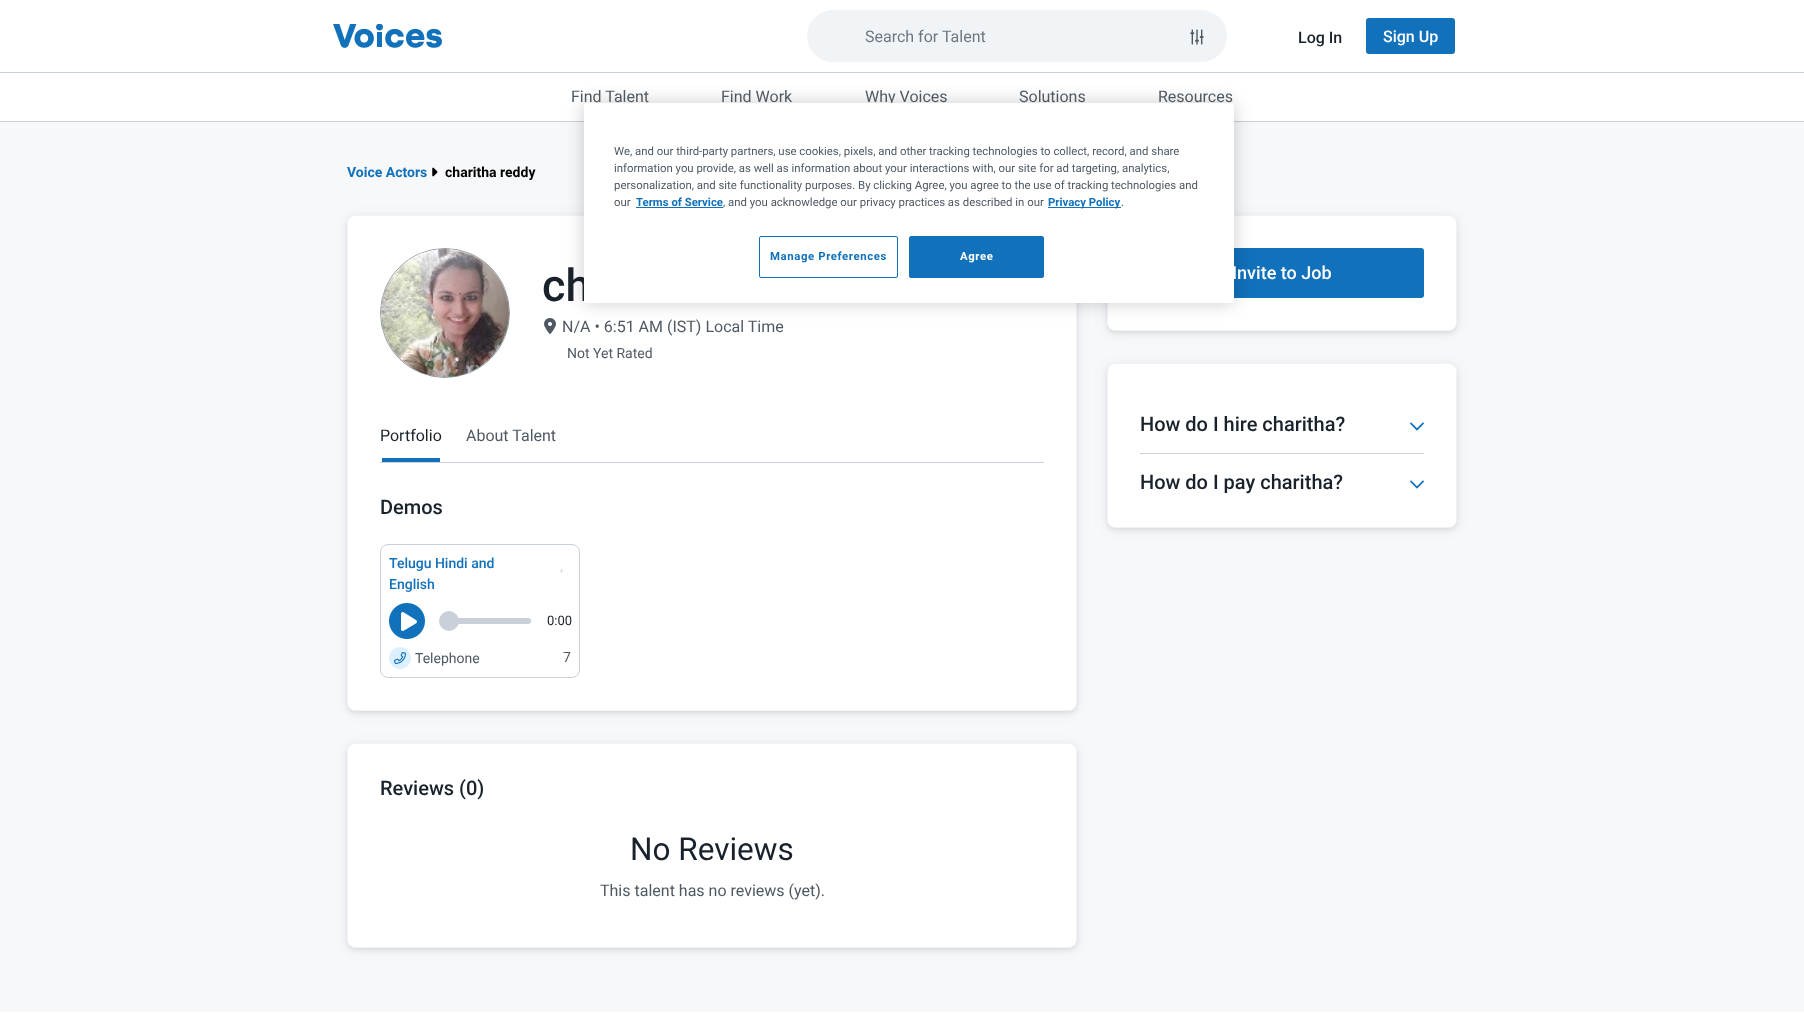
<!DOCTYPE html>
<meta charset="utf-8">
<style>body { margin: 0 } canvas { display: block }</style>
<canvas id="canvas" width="1804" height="1028"></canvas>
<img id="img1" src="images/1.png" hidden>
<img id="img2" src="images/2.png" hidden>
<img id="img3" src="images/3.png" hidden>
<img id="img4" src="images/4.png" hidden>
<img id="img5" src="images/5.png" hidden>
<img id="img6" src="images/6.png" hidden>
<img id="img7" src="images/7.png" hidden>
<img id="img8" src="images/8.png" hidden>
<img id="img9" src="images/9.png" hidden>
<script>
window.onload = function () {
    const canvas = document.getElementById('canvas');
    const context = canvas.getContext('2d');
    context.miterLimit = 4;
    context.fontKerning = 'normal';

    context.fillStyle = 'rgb(255, 255, 255)';
    context.fillRect(0, 0, 1804, 1028);
    context.fillStyle = 'rgb(201, 208, 217)';
    context.fillRect(0, 72, 1804, 1);
    context.drawImage(document.getElementById('img1'), 333, 24, 109, 24);
    context.fillStyle = 'rgb(240, 244, 247)';
    context.beginPath();
    context.roundRect(808, 11, 418, 50, 25);
    context.fill();
    context.strokeStyle = 'rgb(240, 244, 247)';
    context.lineWidth = 2;
    context.stroke();
    context.drawImage(document.getElementById('img2'), 1190, 29, 14, 16);
    context.fillStyle = 'rgb(17, 113, 187)';
    context.beginPath();
    context.roundRect(1366, 18, 89, 36, 3);
    context.fill();
    context.fillStyle = 'rgb(201, 208, 217)';
    context.fillRect(0, 121, 1804, 1);
    context.fillStyle = 'rgb(246, 248, 250)';
    context.fillRect(0, 122, 1804, 890);
    context.drawImage(document.getElementById('img3'), 432, 167, 6, 10);
    context.fillStyle = 'rgba(25, 34, 43, 0.1)';
    context.filter = 'blur(2.5px)';
    context.beginPath();
    context.roundRect(347, 217, 730, 496, 8);
    context.fill();
    context.filter = 'none';
    context.fillStyle = 'rgba(0, 0, 0, 0.05)';
    context.filter = 'blur(7.5px)';
    context.beginPath();
    context.roundRect(347, 217, 730, 496, 8);
    context.fill();
    context.filter = 'none';
    context.fillStyle = 'rgb(255, 255, 255)';
    context.beginPath();
    context.roundRect(347.5, 215.5, 729, 495, 7.5);
    context.fill();
    context.lineWidth = 1;
    context.stroke();
    context.beginPath();
    context.arc(445, 313, 64.5, 0, 2 * Math.PI);
    context.strokeStyle = 'rgb(149, 158, 168)';
    context.stroke();
    context.drawImage(document.getElementById('img4'), 381, 249, 128, 128);
    context.drawImage(document.getElementById('img5'), 544, 318, 12, 16);
    context.fillStyle = 'rgb(201, 208, 217)';
    context.fillRect(380, 462, 664, 1);
    context.fillStyle = 'rgb(17, 113, 187)';
    context.fillRect(382, 458, 58, 4);
    context.beginPath();
    context.roundRect(380.5, 544.5, 199, 133, 7.5);
    context.strokeStyle = 'rgb(201, 208, 217)';
    context.stroke();
    context.drawImage(document.getElementById('img6'), 560, 569, 3, 4);
    context.drawImage(document.getElementById('img7'), 389, 603, 36, 36);
    context.fillStyle = 'rgb(201, 208, 217)';
    context.beginPath();
    context.roundRect(449, 618, 82, 6, 3);
    context.fill();
    context.beginPath();
    context.arc(449, 621, 10, 0, 2 * Math.PI);
    context.fill();
    context.fillStyle = 'rgb(221, 240, 255)';
    context.beginPath();
    context.arc(400, 658, 11, 0, 2 * Math.PI);
    context.fill();
    context.drawImage(document.getElementById('img8'), 394, 652, 12, 12);
    context.fillStyle = 'rgba(25, 34, 43, 0.1)';
    context.filter = 'blur(2.5px)';
    context.beginPath();
    context.roundRect(1107, 217, 350, 116, 8);
    context.fill();
    context.filter = 'none';
    context.fillStyle = 'rgba(0, 0, 0, 0.05)';
    context.filter = 'blur(7.5px)';
    context.beginPath();
    context.roundRect(1107, 217, 350, 116, 8);
    context.fill();
    context.filter = 'none';
    context.fillStyle = 'rgb(255, 255, 255)';
    context.beginPath();
    context.roundRect(1107.5, 215.5, 349, 115, 7.5);
    context.fill();
    context.strokeStyle = 'rgb(240, 244, 247)';
    context.stroke();
    context.fillStyle = 'rgb(17, 113, 187)';
    context.beginPath();
    context.roundRect(1140, 248, 284, 50, 3);
    context.fill();
    context.fillStyle = 'rgba(25, 34, 43, 0.1)';
    context.filter = 'blur(2.5px)';
    context.beginPath();
    context.roundRect(1107, 365, 350, 165, 8);
    context.fill();
    context.filter = 'none';
    context.fillStyle = 'rgba(0, 0, 0, 0.05)';
    context.filter = 'blur(7.5px)';
    context.beginPath();
    context.roundRect(1107, 365, 350, 165, 8);
    context.fill();
    context.filter = 'none';
    context.fillStyle = 'rgb(255, 255, 255)';
    context.beginPath();
    context.roundRect(1107.5, 363.5, 349, 164, 7.5);
    context.fill();
    context.stroke();
    context.drawImage(document.getElementById('img9'), 1410, 422, 14, 9);
    context.fillStyle = 'rgb(201, 208, 217)';
    context.fillRect(1140, 453, 284, 1);
    context.drawImage(document.getElementById('img9'), 1410, 480, 14, 9);
    context.fillStyle = 'rgba(25, 34, 43, 0.1)';
    context.filter = 'blur(2.5px)';
    context.beginPath();
    context.roundRect(347, 745, 730, 205, 8);
    context.fill();
    context.filter = 'none';
    context.fillStyle = 'rgba(0, 0, 0, 0.05)';
    context.filter = 'blur(7.5px)';
    context.beginPath();
    context.roundRect(347, 745, 730, 205, 8);
    context.fill();
    context.filter = 'none';
    context.fillStyle = 'rgb(255, 255, 255)';
    context.beginPath();
    context.roundRect(347.5, 743.5, 729, 204, 7.5);
    context.fill();
    context.stroke();
    context.fillStyle = 'rgba(0, 0, 0, 0.2)';
    context.filter = 'blur(9px)';
    context.beginPath();
    context.roundRect(584, 103, 650, 200, 2.5);
    context.fill();
    context.filter = 'none';
    context.font = '16px Roboto';
    context.fillStyle = 'rgb(110, 118, 129)';
    context.fillText('Search for Talent', 865, 42);
    context.font = '500 16px Roboto';
    context.fillStyle = 'rgb(25, 34, 43)';
    context.fillText('Log In', 1298, 43);
    context.fillStyle = 'rgb(255, 255, 255)';
    context.fillText('Sign Up', 1383, 42);
    context.font = '16px Roboto';
    context.fillStyle = 'rgb(79, 89, 99)';
    context.fillText('Find Talent', 571, 102);
    context.fillText('Find Work', 721, 102);
    context.fillText('Why Voices', 865, 102);
    context.fillText('Solutions', 1019, 102);
    context.fillText('Resources', 1158, 102);
    context.font = 'bold 14px Roboto';
    context.fillStyle = 'rgb(17, 113, 187)';
    context.fillText('Voice Actors', 347, 177);
    context.fillStyle = 'rgb(0, 0, 0)';
    context.fillText('charitha reddy', 445, 177);
    context.font = '500 45px Roboto';
    context.fillStyle = 'rgb(25, 34, 43)';
    context.fillText('ch', 542, 301);
    context.font = '16px Roboto';
    context.fillStyle = 'rgb(79, 89, 99)';
    context.fillText('N/A • 6:51 AM (IST) Local Time', 562, 332);
    context.font = '14px Roboto';
    context.fillText('Not Yet Rated', 567, 358);
    context.font = '16px Roboto';
    context.fillStyle = 'rgb(25, 34, 43)';
    context.fillText('Portfolio', 380, 441);
    context.fillStyle = 'rgb(79, 89, 99)';
    context.fillText('About Talent', 466, 441);
    context.font = '500 20px Roboto';
    context.fillStyle = 'rgb(25, 34, 43)';
    context.fillText('Demos', 380, 514);
    context.font = '500 14px Roboto';
    context.fillStyle = 'rgb(17, 113, 187)';
    context.fillText('Telugu Hindi and', 389, 568);
    context.fillText('English', 389, 589);
    context.font = '13px Roboto';
    context.fillStyle = 'rgb(25, 34, 43)';
    context.fillText('0:00', 547, 625);
    context.font = '14px Roboto';
    context.fillStyle = 'rgb(79, 89, 99)';
    context.fillText('Telephone', 415, 663);
    context.fillText('7', 563, 662);
    context.font = '500 18px Roboto';
    context.fillStyle = 'rgb(255, 255, 255)';
    context.fillText('Invite to Job', 1232, 279);
    context.font = '500 20px Roboto';
    context.fillStyle = 'rgb(25, 34, 43)';
    context.fillText('How do I hire charitha?', 1140, 431);
    context.fillText('How do I pay charitha?', 1140, 489);
    context.fillText('Reviews (0)', 380, 795);
    context.font = '31.5px Roboto';
    context.fillText('No Reviews', 630, 860);
    context.font = '16px Roboto';
    context.fillStyle = 'rgb(79, 89, 99)';
    context.fillText('This talent has no reviews (yet).', 600, 896);
    context.fillStyle = 'rgb(255, 255, 255)';
    context.beginPath();
    context.roundRect(584, 103, 650, 200, 2.5);
    context.fill();
    context.font = '11.38px Roboto';
    context.fillStyle = 'rgb(79, 89, 99)';
    context.fillText('We, and our third-party partners, use cookies, pixels, and other tracking technologies to collect, record, and share', 614, 155);
    context.fillText('information you provide, as well as information about your interactions with, our site for ad targeting, analytics,', 614, 172);
    context.fillText('personalization, and site functionality purposes. By clicking Agree, you agree to the use of tracking technologies and', 614, 189);
    context.fillText('our', 614, 206);
    context.font = 'bold 11.38px Roboto';
    context.fillStyle = 'rgb(17, 113, 187)';
    context.fillText('Terms of Service', 636, 206);
    context.fillRect(636, 207, 87, 1);
    context.font = '11.38px Roboto';
    context.fillStyle = 'rgb(79, 89, 99)';
    context.fillText(', and you acknowledge our privacy practices as described in our', 723, 206);
    context.fillStyle = 'rgb(17, 113, 187)';
    context.fillRect(1048, 207, 73, 1);
    context.font = 'bold 11.38px Roboto';
    context.fillText('Privacy Policy', 1048, 206);
    context.font = '11.38px Roboto';
    context.fillStyle = 'rgb(79, 89, 99)';
    context.fillText('.', 1121, 206);
    context.beginPath();
    context.roundRect(759.5, 236.5, 138, 41, 1.5);
    context.strokeStyle = 'rgb(17, 113, 187)';
    context.stroke();
    context.letterSpacing = '0.6px';
    context.font = 'bold 11.38px Roboto';
    context.fillStyle = 'rgb(17, 113, 187)';
    context.fillText('Manage Preferences', 770, 260);
    context.beginPath();
    context.roundRect(909.5, 236.5, 134, 41, 1.5);
    context.fill();
    context.stroke();
    context.fillStyle = 'rgb(255, 255, 255)';
    context.fillText('Agree', 960, 260);
};
</script>
